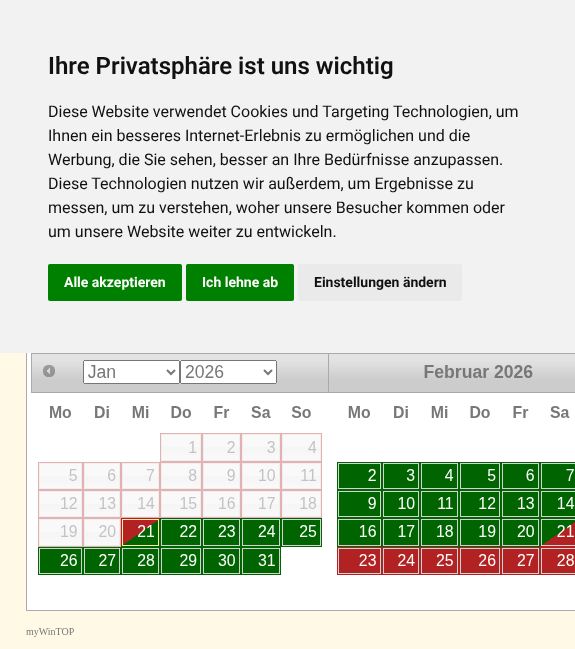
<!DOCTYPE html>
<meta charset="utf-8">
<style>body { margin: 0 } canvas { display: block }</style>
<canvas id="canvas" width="575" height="649"></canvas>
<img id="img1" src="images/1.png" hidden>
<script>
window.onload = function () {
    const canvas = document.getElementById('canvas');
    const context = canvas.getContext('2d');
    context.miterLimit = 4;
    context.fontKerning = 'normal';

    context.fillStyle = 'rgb(255, 249, 230)';
    context.fillRect(0, 0, 575, 649);
    context.fillStyle = 'rgb(242, 242, 242)';
    context.fillRect(0, 0, 575, 353);
    context.fillStyle = 'rgb(0, 128, 0)';
    context.beginPath();
    context.roundRect(48, 264, 134, 37, 2);
    context.fill();
    context.beginPath();
    context.roundRect(186, 264, 108, 37, 2);
    context.fill();
    context.fillStyle = 'rgb(234, 234, 234)';
    context.beginPath();
    context.roundRect(298, 264, 164, 37, 2);
    context.fill();
    context.drawImage(document.getElementById('img1'), 26, 353, 549, 284);
    context.font = '600 24px Roboto';
    context.fillStyle = 'rgb(17, 17, 17)';
    context.fillText('Ihre Privatsphäre ist uns wichtig', 48, 74);
    context.font = '16px Roboto';
    context.fillText('Diese Website verwendet Cookies und Targeting Technologien, um', 48, 117);
    context.fillText('Ihnen ein besseres Internet-Erlebnis zu ermöglichen und die', 48, 141);
    context.fillText('Werbung, die Sie sehen, besser an Ihre Bedürfnisse anzupassen.', 48, 165);
    context.fillText('Diese Technologien nutzen wir außerdem, um Ergebnisse zu', 48, 189);
    context.fillText('messen, um zu verstehen, woher unsere Besucher kommen oder', 48, 213);
    context.fillText('um unsere Website weiter zu entwickeln.', 48, 237);
    context.font = 'bold 14px Roboto';
    context.fillStyle = 'rgb(255, 255, 255)';
    context.fillText('Alle akzeptieren', 64, 287);
    context.fillText('Ich lehne ab', 202, 287);
    context.fillStyle = 'rgb(17, 17, 17)';
    context.fillText('Einstellungen ändern', 314, 287);
};
</script>
